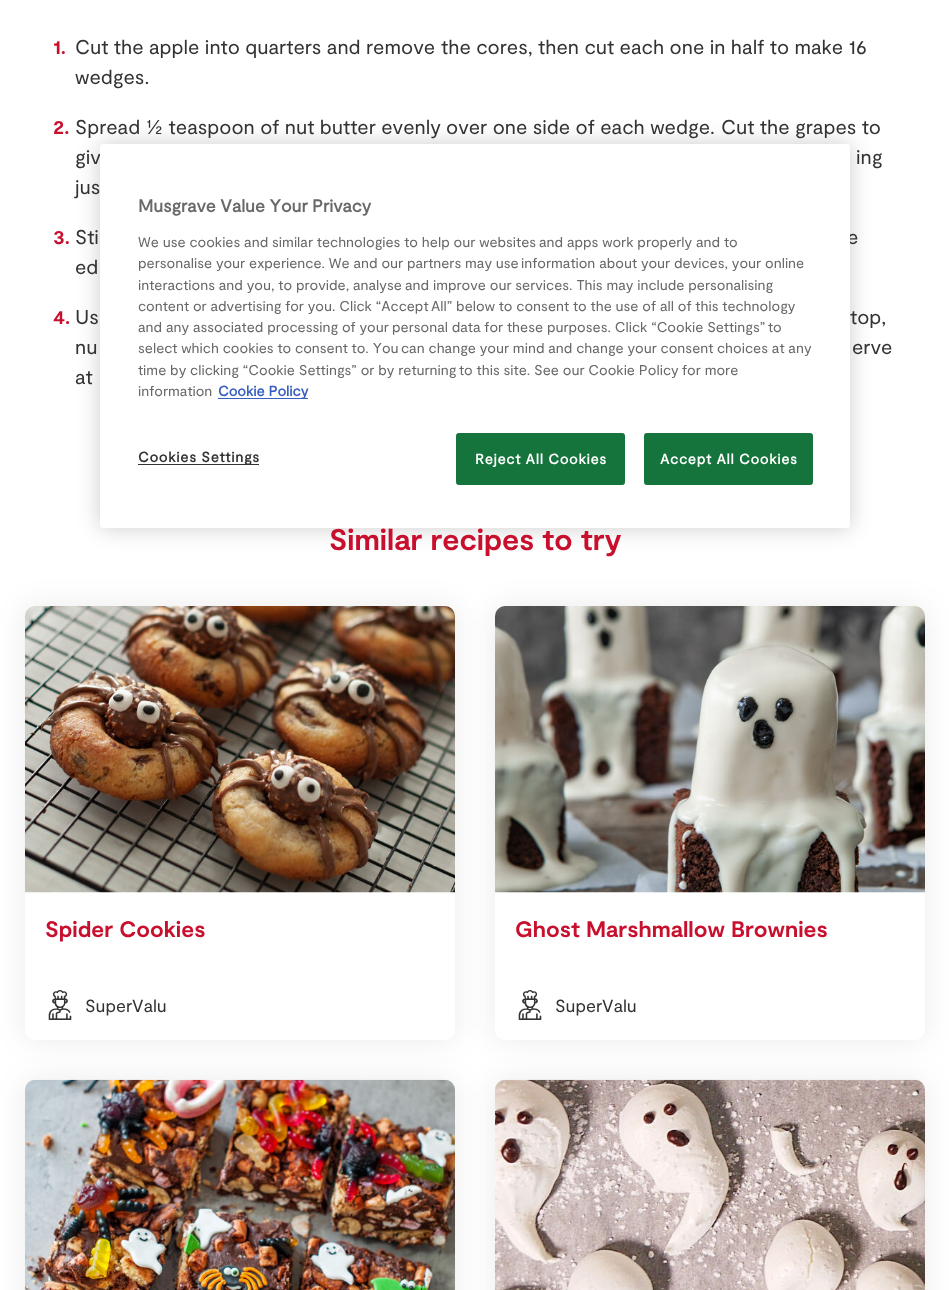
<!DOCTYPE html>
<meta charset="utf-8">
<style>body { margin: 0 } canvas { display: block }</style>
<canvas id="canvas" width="949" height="1290"></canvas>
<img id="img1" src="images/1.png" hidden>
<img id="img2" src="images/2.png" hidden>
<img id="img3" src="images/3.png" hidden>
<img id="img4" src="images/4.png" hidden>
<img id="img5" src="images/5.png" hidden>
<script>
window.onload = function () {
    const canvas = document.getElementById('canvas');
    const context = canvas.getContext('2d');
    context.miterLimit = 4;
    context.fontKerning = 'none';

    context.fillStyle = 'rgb(255, 255, 255)';
    context.fillRect(0, 0, 949, 1290);
    context.fillStyle = 'rgba(0, 0, 0, 0.08)';
    context.filter = 'blur(15px)';
    context.beginPath();
    context.roundRect(25, 606, 430, 434, 10);
    context.fill();
    context.filter = 'none';
    context.fillStyle = 'rgb(255, 255, 255)';
    context.beginPath();
    context.roundRect(25, 606, 430, 434, 10);
    context.fill();
    context.drawImage(document.getElementById('img1'), 25, 606, 430, 287);
    context.drawImage(document.getElementById('img2'), 48, 990, 24, 30);
    context.fillStyle = 'rgba(0, 0, 0, 0.08)';
    context.filter = 'blur(15px)';
    context.beginPath();
    context.roundRect(495, 606, 430, 434, 10);
    context.fill();
    context.filter = 'none';
    context.fillStyle = 'rgb(255, 255, 255)';
    context.beginPath();
    context.roundRect(495, 606, 430, 434, 10);
    context.fill();
    context.drawImage(document.getElementById('img3'), 495, 606, 430, 287);
    context.drawImage(document.getElementById('img2'), 518, 990, 24, 30);
    context.fillStyle = 'rgba(0, 0, 0, 0.08)';
    context.filter = 'blur(15px)';
    context.beginPath();
    context.roundRect(25, 1080, 430, 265, 10);
    context.fill();
    context.filter = 'none';
    context.drawImage(document.getElementById('img4'), 25, 1079, 430, 211);
    context.filter = 'blur(15px)';
    context.beginPath();
    context.roundRect(495, 1080, 430, 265, 10);
    context.fill();
    context.filter = 'none';
    context.drawImage(document.getElementById('img5'), 495, 1079, 430, 211);
    context.fillStyle = 'rgba(0, 0, 0, 0.2)';
    context.filter = 'blur(11px)';
    context.beginPath();
    context.roundRect(100, 144, 750, 384, 3);
    context.fill();
    context.filter = 'none';
    context.font = 'bold 20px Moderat';
    context.fillStyle = 'rgb(200, 16, 46)';
    context.fillText('1.', 53, 54);
    context.font = '20px Moderat';
    context.fillStyle = 'rgb(51, 51, 51)';
    context.fillText('Cut the apple into quarters and remove', 75, 54);
    context.fillText('the cores, then cut each one in half to make 16', 441, 54);
    context.fillText('wedges.', 75, 84);
    context.font = 'bold 20px Moderat';
    context.fillStyle = 'rgb(200, 16, 46)';
    context.fillText('2.', 53, 134);
    context.font = '20px Moderat';
    context.fillStyle = 'rgb(51, 51, 51)';
    context.fillText('Spread ½ teaspoon of nut butter evenly', 75, 134);
    context.fillText('over one side of each wedge.', 446, 134);
    context.fillText('Cut the grapes to', 721, 134);
    context.fillText('giv', 75, 164);
    context.fillText('ing', 856, 164);
    context.fillText('jus', 75, 194);
    context.font = 'bold 20px Moderat';
    context.fillStyle = 'rgb(200, 16, 46)';
    context.fillText('3.', 53, 244);
    context.font = '20px Moderat';
    context.fillStyle = 'rgb(51, 51, 51)';
    context.fillText('Sti', 75, 244);
    context.fillText('e', 847, 244);
    context.fillText('ed', 75, 274);
    context.font = 'bold 20px Moderat';
    context.fillStyle = 'rgb(200, 16, 46)';
    context.fillText('4.', 53, 324);
    context.font = '20px Moderat';
    context.fillStyle = 'rgb(51, 51, 51)';
    context.fillText('Us', 75, 324);
    context.fillText('top,', 850, 324);
    context.fillText('nu', 75, 354);
    context.fillText('erve', 852, 354);
    context.fillText('at', 75, 384);
    context.font = 'bold 30px Moderat';
    context.fillStyle = 'rgb(200, 16, 46)';
    context.fillText('Similar recipes to try', 329, 550);
    context.font = 'bold 22.5px Moderat';
    context.fillText('Spider Cookies', 45, 937);
    context.font = '17.5px Moderat';
    context.fillStyle = 'rgb(51, 51, 51)';
    context.fillText('SuperValu', 85, 1012);
    context.font = 'bold 22.5px Moderat';
    context.fillStyle = 'rgb(200, 16, 46)';
    context.fillText('Ghost Marshmallow Brownies', 515, 937);
    context.font = '17.5px Moderat';
    context.fillStyle = 'rgb(51, 51, 51)';
    context.fillText('SuperValu', 555, 1012);
    context.fillStyle = 'rgb(255, 255, 255)';
    context.beginPath();
    context.roundRect(100, 144, 750, 384, 3);
    context.fill();
    context.font = 'bold 17.5px "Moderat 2"';
    context.fillStyle = 'rgb(105, 105, 105)';
    context.fillText('Musgrave Value Your', 138, 212);
    context.fillText('Privacy', 312, 212);
    context.font = '14.25px Moderat';
    context.fillText('We use cookies and similar technologies to help our websites', 138, 247);
    context.fillText('and apps work properly and to', 539, 247);
    context.fillText('personalise your experience. We and our partners may use', 138, 268);
    context.fillText('information about your devices, your', 521, 268);
    context.fillText('online', 765, 268);
    context.fillText('interactions and you, to provide, analyse', 138, 290);
    context.fillText('and improve our services. This may include personalising', 405, 290);
    context.fillText('content or advertising for you. Click “Accept', 138, 311);
    context.fillText('All” below to consent to the use of all of this technology', 431, 311);
    context.fillText('and any associated processing of your', 138, 332);
    context.fillText('personal data for these purposes. Click “Cookie Settings”', 392, 332);
    context.fillText('to', 768, 332);
    context.fillText('select which cookies to consent to. You', 138, 353);
    context.fillText('can change your mind and change your consent', 401, 353);
    context.fillText('choices at any', 717, 353);
    context.fillText('time by clicking “Cookie Settings” or by returning', 138, 375);
    context.fillText('to this site. See our Cookie Policy', 459, 375);
    context.fillText('for more', 682, 375);
    context.fillText('information', 138, 396);
    context.fillStyle = 'rgb(56, 96, 190)';
    context.fillRect(218, 398, 90, 1);
    context.font = 'bold 14.25px "Moderat 2"';
    context.fillText('Cookie Policy', 218, 396);
    context.fillStyle = 'rgb(51, 51, 51)';
    context.fillRect(138, 464, 121, 1);
    context.letterSpacing = '0.75px';
    context.fillText('Cookies Settings', 138, 462);
    context.fillStyle = 'rgb(21, 116, 60)';
    context.beginPath();
    context.roundRect(456.5, 433.5, 168, 51, 2);
    context.fill();
    context.strokeStyle = 'rgb(21, 116, 60)';
    context.stroke();
    context.fillStyle = 'rgb(255, 255, 255)';
    context.fillText('Reject All Cookies', 475, 464);
    context.fillStyle = 'rgb(21, 116, 60)';
    context.beginPath();
    context.roundRect(644.5, 433.5, 168, 51, 2);
    context.fill();
    context.stroke();
    context.fillStyle = 'rgb(255, 255, 255)';
    context.fillText('Accept All Cookies', 660, 464);
};
</script>
